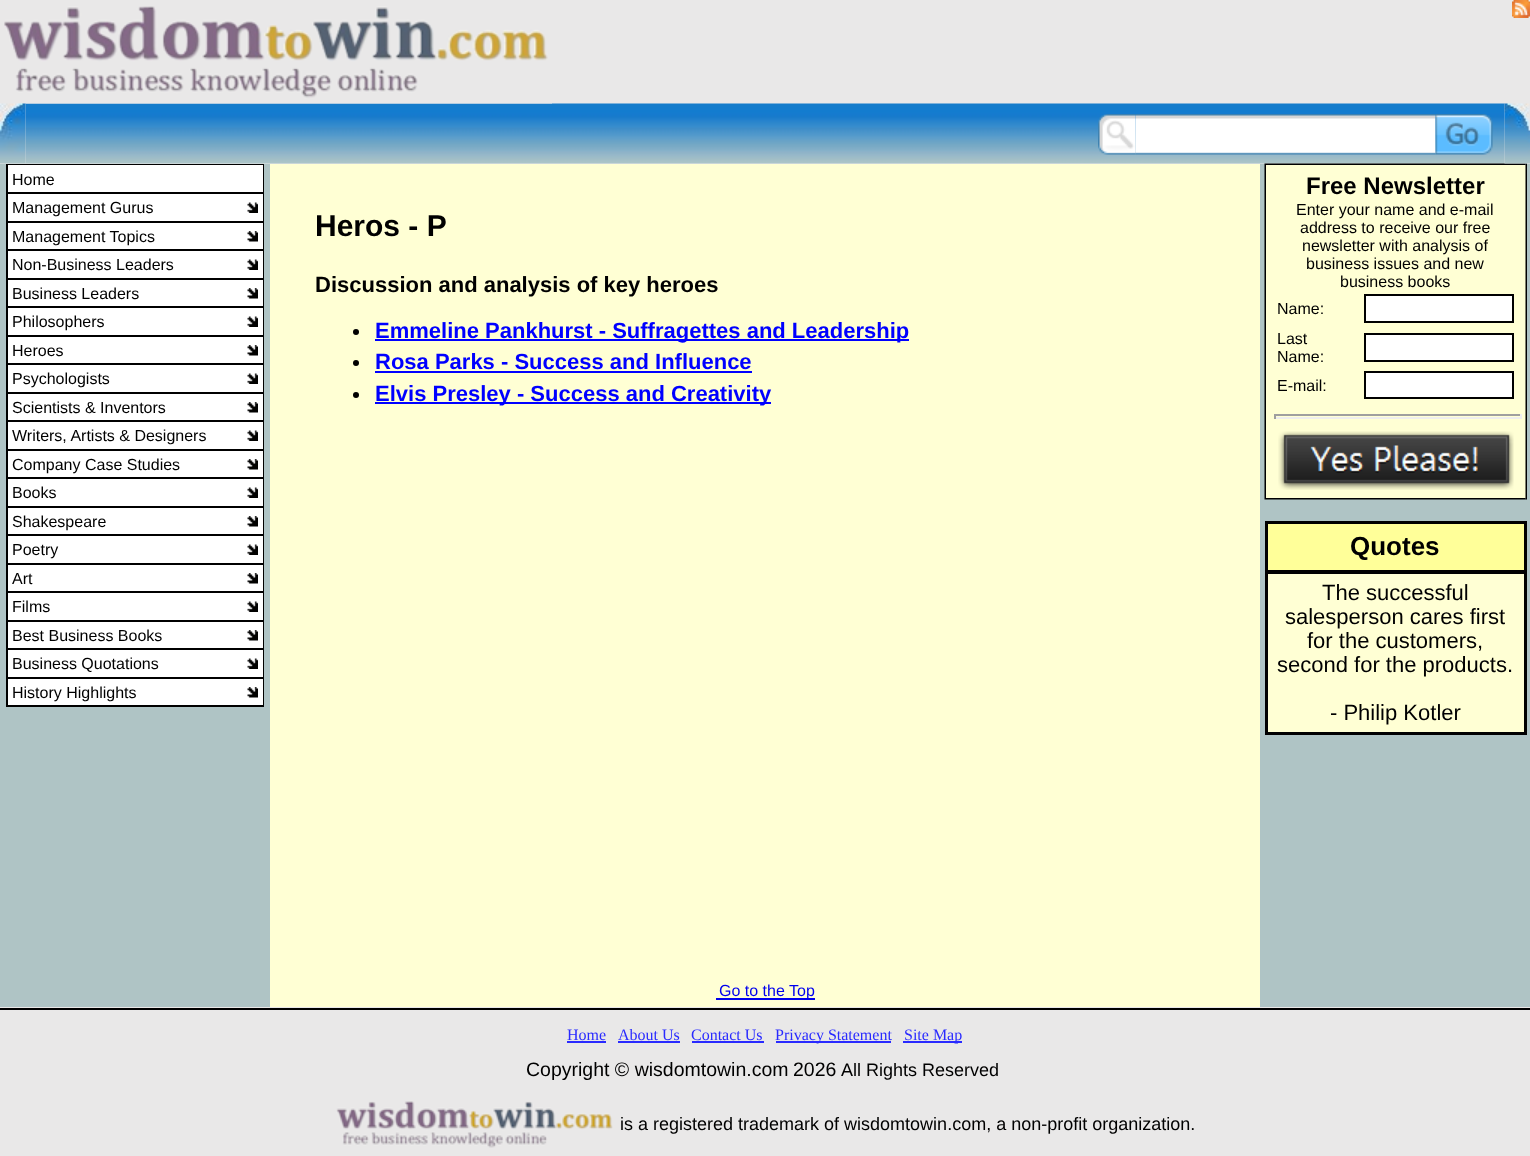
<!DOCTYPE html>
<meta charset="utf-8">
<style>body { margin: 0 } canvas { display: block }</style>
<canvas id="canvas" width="1530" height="1156"></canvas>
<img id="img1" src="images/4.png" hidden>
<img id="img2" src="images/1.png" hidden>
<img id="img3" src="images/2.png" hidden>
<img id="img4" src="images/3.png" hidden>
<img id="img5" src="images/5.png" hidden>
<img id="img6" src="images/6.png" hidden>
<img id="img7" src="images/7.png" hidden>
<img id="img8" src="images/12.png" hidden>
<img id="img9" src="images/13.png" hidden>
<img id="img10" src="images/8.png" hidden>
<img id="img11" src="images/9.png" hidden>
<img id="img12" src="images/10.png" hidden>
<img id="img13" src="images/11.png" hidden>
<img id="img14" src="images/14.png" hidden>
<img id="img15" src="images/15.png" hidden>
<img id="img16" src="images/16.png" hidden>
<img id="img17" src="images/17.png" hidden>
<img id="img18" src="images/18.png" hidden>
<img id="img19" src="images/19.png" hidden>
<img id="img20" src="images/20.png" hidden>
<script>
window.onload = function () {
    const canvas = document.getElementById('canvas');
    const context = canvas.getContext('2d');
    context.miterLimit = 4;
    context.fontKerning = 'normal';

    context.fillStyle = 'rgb(233, 232, 232)';
    context.fillRect(0, 0, 1530, 1156);
    context.drawImage(document.getElementById('img1'), 25, 103, 1480, 61);
    context.drawImage(document.getElementById('img2'), 4, 6, 548, 98);
    context.drawImage(document.getElementById('img3'), 1512, 0, 18, 18);
    context.drawImage(document.getElementById('img4'), 0, 103, 26, 61);
    context.drawImage(document.getElementById('img5'), 1098, 114, 38, 41);
    context.drawImage(document.getElementById('img6'), 1135, 114, 301, 41);
    context.drawImage(document.getElementById('img7'), 1435, 114, 58, 41);
    context.fillStyle = 'rgb(175, 196, 197)';
    context.fillRect(1260, 164, 270, 843);
    context.drawImage(document.getElementById('img8'), 1266, 163, 260, 2);
    context.drawImage(document.getElementById('img9'), 1525, 163, 2, 2);
    context.drawImage(document.getElementById('img10'), 1504, 103, 26, 61);
    context.fillRect(0, 164, 270, 843);
    context.strokeStyle = 'rgb(0, 0, 0)';
    context.lineWidth = 2;
    context.strokeRect(7, 165, 256, 541);
    context.fillStyle = 'rgb(255, 255, 255)';
    context.fillRect(8, 165, 255, 27);
    context.fillStyle = 'rgb(0, 0, 0)';
    context.fillRect(8, 192, 255, 2);
    context.fillStyle = 'rgb(255, 255, 255)';
    context.fillRect(8, 194, 255, 27);
    context.drawImage(document.getElementById('img11'), 247, 202, 11, 11);
    context.fillStyle = 'rgb(0, 0, 0)';
    context.fillRect(8, 221, 255, 2);
    context.fillStyle = 'rgb(255, 255, 255)';
    context.fillRect(8, 223, 255, 26);
    context.drawImage(document.getElementById('img12'), 247, 231, 11, 11);
    context.fillStyle = 'rgb(0, 0, 0)';
    context.fillRect(8, 249, 255, 2);
    context.fillStyle = 'rgb(255, 255, 255)';
    context.fillRect(8, 251, 255, 27);
    context.drawImage(document.getElementById('img11'), 247, 259, 11, 11);
    context.fillStyle = 'rgb(0, 0, 0)';
    context.fillRect(8, 278, 255, 2);
    context.fillStyle = 'rgb(255, 255, 255)';
    context.fillRect(8, 280, 255, 26);
    context.drawImage(document.getElementById('img12'), 247, 288, 11, 11);
    context.fillStyle = 'rgb(0, 0, 0)';
    context.fillRect(8, 306, 255, 2);
    context.fillStyle = 'rgb(255, 255, 255)';
    context.fillRect(8, 308, 255, 27);
    context.drawImage(document.getElementById('img11'), 247, 316, 11, 11);
    context.fillStyle = 'rgb(0, 0, 0)';
    context.fillRect(8, 335, 255, 2);
    context.fillStyle = 'rgb(255, 255, 255)';
    context.fillRect(8, 337, 255, 26);
    context.drawImage(document.getElementById('img12'), 247, 345, 11, 11);
    context.fillStyle = 'rgb(0, 0, 0)';
    context.fillRect(8, 363, 255, 2);
    context.fillStyle = 'rgb(255, 255, 255)';
    context.fillRect(8, 365, 255, 27);
    context.drawImage(document.getElementById('img11'), 247, 373, 11, 11);
    context.fillStyle = 'rgb(0, 0, 0)';
    context.fillRect(8, 392, 255, 2);
    context.fillStyle = 'rgb(255, 255, 255)';
    context.fillRect(8, 394, 255, 26);
    context.drawImage(document.getElementById('img12'), 247, 402, 11, 11);
    context.fillStyle = 'rgb(0, 0, 0)';
    context.fillRect(8, 420, 255, 2);
    context.fillStyle = 'rgb(255, 255, 255)';
    context.fillRect(8, 422, 255, 27);
    context.drawImage(document.getElementById('img11'), 247, 430, 11, 11);
    context.fillStyle = 'rgb(0, 0, 0)';
    context.fillRect(8, 449, 255, 2);
    context.fillStyle = 'rgb(255, 255, 255)';
    context.fillRect(8, 451, 255, 26);
    context.drawImage(document.getElementById('img12'), 247, 459, 11, 11);
    context.fillStyle = 'rgb(0, 0, 0)';
    context.fillRect(8, 477, 255, 2);
    context.fillStyle = 'rgb(255, 255, 255)';
    context.fillRect(8, 479, 255, 27);
    context.drawImage(document.getElementById('img11'), 247, 487, 11, 11);
    context.fillStyle = 'rgb(0, 0, 0)';
    context.fillRect(8, 506, 255, 2);
    context.fillStyle = 'rgb(255, 255, 255)';
    context.fillRect(8, 508, 255, 26);
    context.drawImage(document.getElementById('img12'), 247, 516, 11, 11);
    context.fillStyle = 'rgb(0, 0, 0)';
    context.fillRect(8, 534, 255, 2);
    context.fillStyle = 'rgb(255, 255, 255)';
    context.fillRect(8, 536, 255, 27);
    context.drawImage(document.getElementById('img11'), 247, 544, 11, 11);
    context.fillStyle = 'rgb(0, 0, 0)';
    context.fillRect(8, 563, 255, 2);
    context.fillStyle = 'rgb(255, 255, 255)';
    context.fillRect(8, 565, 255, 26);
    context.drawImage(document.getElementById('img12'), 247, 573, 11, 11);
    context.fillStyle = 'rgb(0, 0, 0)';
    context.fillRect(8, 591, 255, 2);
    context.fillStyle = 'rgb(255, 255, 255)';
    context.fillRect(8, 593, 255, 27);
    context.drawImage(document.getElementById('img11'), 247, 601, 11, 11);
    context.fillStyle = 'rgb(0, 0, 0)';
    context.fillRect(8, 620, 255, 2);
    context.fillStyle = 'rgb(255, 255, 255)';
    context.fillRect(8, 622, 255, 26);
    context.drawImage(document.getElementById('img12'), 247, 630, 11, 11);
    context.fillStyle = 'rgb(0, 0, 0)';
    context.fillRect(8, 648, 255, 2);
    context.fillStyle = 'rgb(255, 255, 255)';
    context.fillRect(8, 650, 255, 27);
    context.drawImage(document.getElementById('img11'), 247, 658, 11, 11);
    context.fillStyle = 'rgb(0, 0, 0)';
    context.fillRect(8, 677, 255, 2);
    context.fillStyle = 'rgb(255, 255, 255)';
    context.fillRect(8, 679, 255, 26);
    context.drawImage(document.getElementById('img12'), 247, 687, 11, 11);
    context.fillStyle = 'rgb(255, 255, 212)';
    context.fillRect(270, 164, 990, 843);
    context.fillStyle = 'rgb(0, 0, 0)';
    context.beginPath();
    context.arc(356, 332, 3, 0, 2 * Math.PI);
    context.fill();
    context.fillStyle = 'rgb(0, 0, 255)';
    context.fillRect(375, 339, 534, 2);
    context.fillStyle = 'rgb(0, 0, 0)';
    context.beginPath();
    context.arc(356, 363, 3, 0, 2 * Math.PI);
    context.fill();
    context.fillStyle = 'rgb(0, 0, 255)';
    context.fillRect(375, 371, 377, 2);
    context.fillStyle = 'rgb(0, 0, 0)';
    context.beginPath();
    context.arc(356, 395, 3, 0, 2 * Math.PI);
    context.fill();
    context.fillStyle = 'rgb(0, 0, 255)';
    context.fillRect(375, 402, 396, 2);
    context.fillStyle = 'rgb(0, 0, 238)';
    context.fillRect(716, 998, 99, 2);
    context.drawImage(document.getElementById('img13'), 1264, 163, 2, 2);
    context.drawImage(document.getElementById('img14'), 1264, 165, 2, 333);
    context.fillStyle = 'rgb(255, 255, 212)';
    context.fillRect(1266, 165, 260, 333);
    context.fillStyle = 'rgb(255, 255, 255)';
    context.beginPath();
    context.rect(1365, 295, 148, 27);
    context.fill();
    context.stroke();
    context.beginPath();
    context.rect(1365, 334, 148, 27);
    context.fill();
    context.stroke();
    context.beginPath();
    context.rect(1365, 372, 148, 26);
    context.fill();
    context.stroke();
    context.fillStyle = 'rgb(159, 159, 159)';
    context.fillRect(1274, 414, 247, 2);
    context.fillStyle = 'rgb(238, 238, 238)';
    context.fillRect(1520, 414, 2, 5);
    context.fillRect(1274, 417, 247, 2);
    context.fillStyle = 'rgb(159, 159, 159)';
    context.fillRect(1274, 414, 2, 5);
    context.drawImage(document.getElementById('img15'), 1278, 431, 236, 59);
    context.drawImage(document.getElementById('img16'), 1525, 165, 2, 333);
    context.drawImage(document.getElementById('img17'), 1264, 498, 2, 2);
    context.drawImage(document.getElementById('img18'), 1266, 498, 260, 2);
    context.drawImage(document.getElementById('img19'), 1525, 498, 2, 2);
    context.strokeRect(1266, 522, 260, 212);
    context.fillStyle = 'rgb(255, 255, 153)';
    context.beginPath();
    context.rect(1267, 523, 258, 48);
    context.fill();
    context.stroke();
    context.fillStyle = 'rgb(255, 255, 212)';
    context.beginPath();
    context.rect(1267, 573, 258, 160);
    context.fill();
    context.stroke();
    context.fillStyle = 'rgb(0, 0, 0)';
    context.fillRect(0, 1008, 1530, 2);
    context.fillStyle = 'rgb(41, 42, 255)';
    context.fillRect(567, 1041, 39, 2);
    context.fillRect(618, 1041, 62, 2);
    context.fillRect(692, 1041, 72, 2);
    context.fillRect(776, 1041, 115, 2);
    context.fillRect(903, 1041, 59, 2);
    context.drawImage(document.getElementById('img20'), 336, 1101, 277, 47);
    context.font = '16px Liberation Sans';
    context.fillStyle = 'rgb(0, 0, 0)';
    context.fillText('Home', 12, 185);
    context.fillText('Management Gurus', 12, 213);
    context.fillText('Management Topics', 12, 242);
    context.fillText('Non-Business Leaders', 12, 270);
    context.fillText('Business Leaders', 12, 299);
    context.fillText('Philosophers', 12, 327);
    context.fillText('Heroes', 12, 356);
    context.fillText('Psychologists', 12, 384);
    context.fillText('Scientists & Inventors', 12, 413);
    context.fillText('Writers, Artists & Designers', 12, 441);
    context.fillText('Company Case Studies', 12, 470);
    context.fillText('Books', 12, 498);
    context.fillText('Shakespeare', 12, 527);
    context.fillText('Poetry', 12, 555);
    context.fillText('Art', 12, 584);
    context.fillText('Films', 12, 612);
    context.fillText('Best Business Books', 12, 641);
    context.fillText('Business Quotations', 12, 669);
    context.fillText('History Highlights', 12, 698);
    context.font = 'bold 30px Liberation Sans';
    context.fillText('Heros - P', 315, 236);
    context.font = 'bold 22px Liberation Sans';
    context.fillText('Discussion and analysis of key heroes', 315, 292);
    context.fillStyle = 'rgb(0, 0, 255)';
    context.fillText('Emmeline Pankhurst - Suffragettes and Leadership', 375, 338);
    context.fillText('Rosa Parks - Success and Influence', 375, 369);
    context.fillText('Elvis Presley - Success and Creativity', 375, 401);
    context.font = '16px Liberation Sans';
    context.fillStyle = 'rgb(0, 0, 238)';
    context.fillText('Go to the Top', 719, 996);
    context.font = 'bold 24px Liberation Sans';
    context.fillStyle = 'rgb(0, 0, 0)';
    context.fillText('Free Newsletter', 1306, 194);
    context.font = '16px Liberation Sans';
    context.fillText('Enter your name and e-mail', 1296, 215);
    context.fillText('address to receive our free', 1300, 233);
    context.fillText('newsletter with analysis of', 1302, 251);
    context.fillText('business issues and new', 1306, 269);
    context.fillText('business books', 1340, 287);
    context.fillText('Name:', 1277, 314);
    context.fillText('Last', 1277, 344);
    context.fillText('Name:', 1277, 362);
    context.fillText('E-mail:', 1277, 391);
    context.font = 'bold 26px Liberation Sans';
    context.fillText('Quotes', 1350, 555);
    context.font = '22px Liberation Sans';
    context.fillText('The successful', 1322, 600);
    context.fillText('salesperson cares first', 1285, 624);
    context.fillText('for the customers,', 1307, 648);
    context.fillText('second for the products.', 1277, 672);
    context.fillText('- Philip Kotler', 1330, 720);
    context.font = '16px Liberation Serif';
    context.fillStyle = 'rgb(41, 42, 255)';
    context.fillText('Home', 567, 1040);
    context.fillText('About Us', 618, 1040);
    context.fillText('Contact Us', 691, 1040);
    context.fillText('Privacy Statement', 775, 1040);
    context.fillText('Site Map', 904, 1040);
    context.font = '19.5px Liberation Sans';
    context.fillStyle = 'rgb(0, 0, 0)';
    context.fillText('Copyright © wisdomtowin.com', 526, 1076);
    context.fillText('2026', 793, 1076);
    context.font = '18px Liberation Sans';
    context.fillText('All Rights Reserved', 841, 1076);
    context.fillText('is a registered trademark of wisdomtowin.com, a non-profit organization.', 620, 1130);
};
</script>
